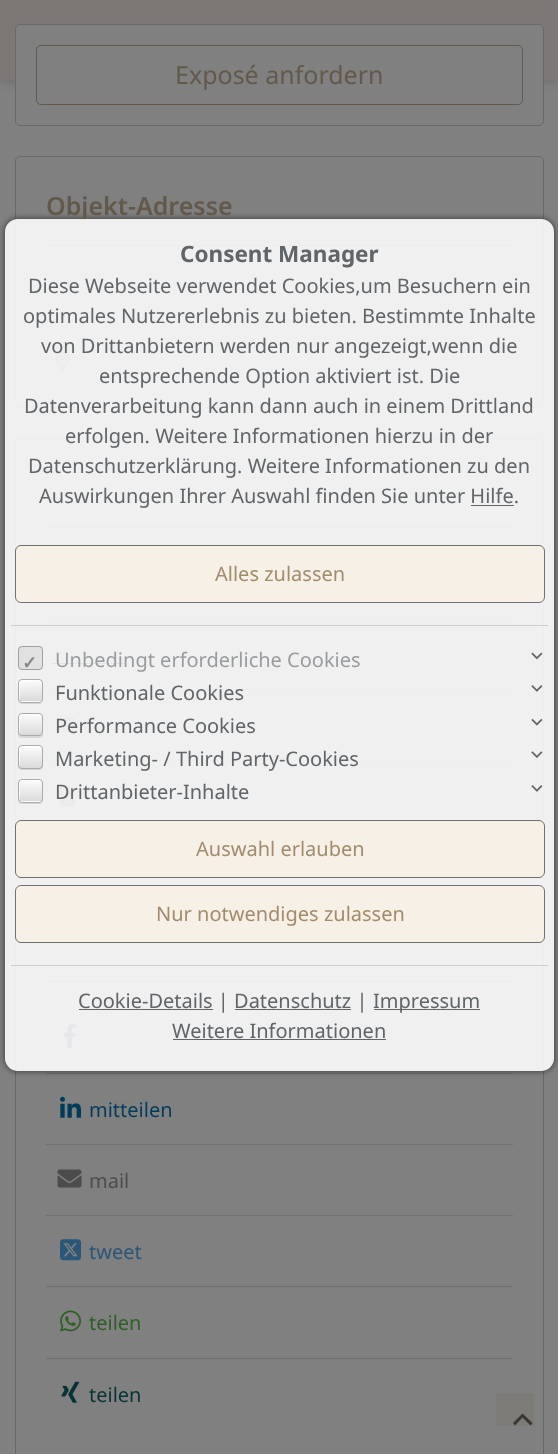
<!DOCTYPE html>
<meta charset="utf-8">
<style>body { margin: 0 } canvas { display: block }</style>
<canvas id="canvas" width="558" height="1454"></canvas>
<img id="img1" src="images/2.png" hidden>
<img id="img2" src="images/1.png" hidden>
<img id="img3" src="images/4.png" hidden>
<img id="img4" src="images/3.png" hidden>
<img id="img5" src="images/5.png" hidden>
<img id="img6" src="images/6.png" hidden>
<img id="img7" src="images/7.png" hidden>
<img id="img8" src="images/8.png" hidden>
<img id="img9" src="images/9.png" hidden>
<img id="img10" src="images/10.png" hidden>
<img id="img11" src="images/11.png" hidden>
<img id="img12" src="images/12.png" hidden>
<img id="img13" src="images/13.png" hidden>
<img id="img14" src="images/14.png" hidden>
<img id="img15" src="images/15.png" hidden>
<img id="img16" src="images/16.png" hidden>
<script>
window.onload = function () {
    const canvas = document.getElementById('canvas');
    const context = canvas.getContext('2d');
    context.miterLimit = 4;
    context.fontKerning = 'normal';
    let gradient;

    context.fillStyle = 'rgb(128, 128, 128)';
    context.fillRect(0, 0, 558, 1454);
    context.fillStyle = 'rgba(0, 0, 0, 0.2)';
    context.filter = 'blur(6px)';
    context.beginPath();
    context.rect(0, 0, 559, 80);
    context.fill();
    context.filter = 'none';
    context.fillStyle = 'rgb(124, 120, 115)';
    context.fillRect(0, 0, 558, 80);
    context.fillStyle = 'rgb(128, 128, 128)';
    context.beginPath();
    context.roundRect(15, 24, 529, 102, 5);
    context.fill();
    context.beginPath();
    context.roundRect(15.5, 24.5, 528, 101, 4.5);
    context.strokeStyle = 'rgba(0, 0, 0, 0.18)';
    context.stroke();
    context.beginPath();
    context.roundRect(36.5, 45.5, 486, 59, 4.5);
    context.strokeStyle = 'rgb(98, 88, 75)';
    context.stroke();
    context.beginPath();
    context.roundRect(15.5, 156.5, 528, 251, 4.5);
    context.strokeStyle = 'rgba(0, 0, 0, 0.18)';
    context.stroke();
    context.fillStyle = 'rgb(100, 101, 101)';
    context.fillRect(46, 245, 467, 1);
    context.drawImage(document.getElementById('img1'), 60, 356, 5, 5);
    context.drawImage(document.getElementById('img2'), 55, 351, 15, 21);
    context.beginPath();
    context.roundRect(15.5, 438.5, 528, 424, 4.5);
    context.stroke();
    context.fillRect(46, 526, 467, 1);
    context.fillStyle = 'rgb(111, 113, 115)';
    context.fillRect(46, 618, 467, 1);
    context.fillRect(46, 689, 467, 1);
    context.fillStyle = 'rgb(17, 19, 21)';
    context.fillRect(51, 663, 74, 1);
    context.fillStyle = 'rgb(111, 113, 115)';
    context.fillRect(46, 760, 467, 1);
    context.drawImage(document.getElementById('img3'), 64, 719, 7, 11);
    context.drawImage(document.getElementById('img4'), 57, 716, 21, 18);
    context.drawImage(document.getElementById('img5'), 60, 786, 15, 21);
    context.drawImage(document.getElementById('img6'), 62, 793, 11, 11);
    context.strokeStyle = 'rgb(105, 105, 105)';
    context.strokeRect(15.5, 893.5, 528, 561);
    context.fillStyle = 'rgb(100, 101, 101)';
    context.fillRect(46, 981, 467, 1);
    context.fillStyle = 'rgb(111, 113, 115)';
    context.fillRect(46, 1073, 467, 1);
    context.drawImage(document.getElementById('img7'), 63, 1024, 14, 24);
    context.fillRect(46, 1144, 467, 1);
    context.drawImage(document.getElementById('img8'), 60, 1096, 21, 22);
    context.fillRect(46, 1215, 467, 1);
    context.drawImage(document.getElementById('img9'), 57, 1169, 25, 19);
    context.fillRect(46, 1286, 467, 1);
    context.drawImage(document.getElementById('img10'), 60, 1239, 21, 22);
    context.fillRect(46, 1358, 467, 1);
    context.drawImage(document.getElementById('img11'), 60, 1310, 21, 22);
    context.drawImage(document.getElementById('img12'), 61, 1381, 19, 22);
    context.save();
    context.beginPath();
    context.moveTo(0, 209);
    context.lineTo(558, 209);
    context.lineTo(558, 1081);
    context.lineTo(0, 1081);
    context.closePath();
    context.moveTo(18, 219);
    context.lineTo(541, 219);
    context.bezierCurveTo(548, 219, 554, 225, 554, 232);
    context.lineTo(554, 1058);
    context.bezierCurveTo(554, 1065, 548, 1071, 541, 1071);
    context.lineTo(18, 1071);
    context.bezierCurveTo(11, 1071, 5, 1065, 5, 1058);
    context.lineTo(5, 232);
    context.bezierCurveTo(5, 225, 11, 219, 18, 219);
    context.closePath();
    context.clip('evenodd');
    context.fillStyle = 'rgba(0, 0, 0, 0.6)';
    context.filter = 'blur(3px)';
    context.beginPath();
    context.roundRect(5, 219, 549, 852, 13);
    context.fill();
    context.filter = 'none';
    context.restore();
    context.fillStyle = 'rgb(125, 123, 119)';
    context.fillRect(496, 1393, 38, 33);
    context.fillStyle = 'rgb(59, 54, 47)';
    context.beginPath();
    context.moveTo(530.5, 1425.5);
    context.lineTo(522.5, 1417.5);
    context.lineTo(515, 1425.5);
    context.lineTo(513, 1423);
    context.lineTo(522.5, 1413.5);
    context.lineTo(532.5, 1423);
    context.closePath();
    context.fill();
    context.font = '25px Noto Sans';
    context.fillStyle = 'rgb(98, 88, 75)';
    context.fillText('Exposé anfordern', 175, 84);
    context.font = '600 25px Noto Sans';
    context.fillText('Objekt-Adresse', 46, 215);
    context.font = '20px Noto Sans';
    context.fillStyle = 'rgb(0, 60, 91)';
    context.fillText('mitteilen', 89, 1117);
    context.fillStyle = 'rgb(77, 77, 77)';
    context.fillText('mail', 89, 1188);
    context.fillStyle = 'rgb(43, 86, 119)';
    context.fillText('tweet', 89, 1259);
    context.fillStyle = 'rgb(46, 95, 37)';
    context.fillText('teilen', 89, 1330);
    context.fillStyle = 'rgb(9, 51, 52)';
    context.fillText('teilen', 89, 1402);
    context.fillStyle = 'rgba(252, 252, 252, 0.9)';
    context.beginPath();
    context.roundRect(5, 219, 549, 852, 13);
    context.fill();
    context.font = 'bold 22.5px Noto Sans';
    context.fillStyle = 'rgb(96, 101, 105)';
    context.fillText('Consent Manager', 180, 262);
    context.font = '20px Noto Sans';
    context.fillText('Diese Webseite verwendet Cookies,um Besuchern ein', 28, 293);
    context.fillText('optimales Nutzererlebnis zu bieten. Bestimmte Inhalte', 23, 323);
    context.fillText('von Drittanbietern werden nur angezeigt,wenn die', 41, 353);
    context.fillText('entsprechende Option aktiviert ist. Die', 99, 383);
    context.fillText('Datenverarbeitung kann dann auch in einem Drittland', 24, 413);
    context.fillText('erfolgen. Weitere Informationen hierzu in der', 65, 443);
    context.fillText('Datenschutzerklärung. Weitere Informationen zu den', 28, 473);
    context.fillText('Auswirkungen Ihrer Auswahl finden Sie unter Hilfe.', 39, 503);
    context.fillRect(471, 505, 43, 1);
    context.fillStyle = 'rgb(247, 240, 230)';
    context.beginPath();
    context.roundRect(15.5, 545.5, 529, 57, 5.5);
    context.fill();
    context.strokeStyle = 'rgb(112, 112, 112)';
    context.stroke();
    context.fillStyle = 'rgb(162, 140, 110)';
    context.fillText('Alles zulassen', 215, 581);
    context.fillStyle = 'rgb(204, 205, 206)';
    context.fillRect(11, 625, 537, 1);
    context.fillStyle = 'rgb(225, 225, 225)';
    context.beginPath();
    context.roundRect(18, 646, 25, 24, 4);
    context.fill();
    context.beginPath();
    context.roundRect(18.5, 646.5, 24, 23, 3.5);
    context.strokeStyle = 'rgba(96, 96, 96, 0.5)';
    context.stroke();
    context.font = 'bold 18px DejaVu Sans';
    context.fillStyle = 'rgb(135, 135, 135)';
    context.fillText('✓', 22, 669);
    context.font = '20px Noto Sans';
    context.fillStyle = 'rgb(153, 156, 159)';
    context.fillText('Unbedingt erforderliche Cookies', 55, 667);
    context.drawImage(document.getElementById('img13'), 531, 652, 12, 8);
    context.fillStyle = 'rgba(0, 0, 0, 0.1)';
    context.filter = 'blur(0.5px)';
    context.beginPath();
    context.roundRect(18, 680, 25, 24, 4);
    context.fill();
    context.filter = 'none';
    context.save();
    context.beginPath();
    context.roundRect(18, 679, 25, 24, 4);
    context.clip();
    gradient = context.createLinearGradient(30, 680, 30, 701);
    gradient.addColorStop(0, 'rgb(252, 252, 252)');
    gradient.addColorStop(1, 'rgb(218, 218, 218)');
    context.fillStyle = gradient;
    context.fillRect(18, 680, 25, 21);
    gradient = context.createLinearGradient(30, 701, 30, 723);
    gradient.addColorStop(0, 'rgb(252, 252, 252)');
    gradient.addColorStop(1, 'rgb(218, 218, 218)');
    context.fillStyle = gradient;
    context.fillRect(18, 701, 25, 2);
    context.restore();
    context.fillStyle = 'rgb(255, 255, 255)';
    context.beginPath();
    context.moveTo(22, 681);
    context.lineTo(37, 681);
    context.bezierCurveTo(39, 681, 40, 681, 41, 681.5);
    context.bezierCurveTo(40.5, 680.5, 39.5, 680, 38.5, 680);
    context.lineTo(21.5, 680);
    context.bezierCurveTo(20, 680, 19, 681, 19, 682.5);
    context.lineTo(19, 698.5);
    context.bezierCurveTo(19, 699.5, 19.5, 700, 20, 700.5);
    context.bezierCurveTo(19, 697.5, 20, 695, 20, 692);
    context.lineTo(19.5, 687.5);
    context.lineTo(20, 683);
    context.bezierCurveTo(20, 682, 21, 681, 22, 681);
    context.closePath();
    context.fill();
    context.beginPath();
    context.roundRect(18.5, 679.5, 24, 23, 3.5);
    context.strokeStyle = 'rgb(170, 170, 170)';
    context.stroke();
    context.fillStyle = 'rgb(96, 101, 105)';
    context.fillText('Funktionale Cookies', 55, 700);
    context.drawImage(document.getElementById('img14'), 531, 685, 12, 7);
    context.fillStyle = 'rgba(0, 0, 0, 0.1)';
    context.filter = 'blur(0.5px)';
    context.beginPath();
    context.roundRect(18, 714, 25, 24, 4);
    context.fill();
    context.filter = 'none';
    context.save();
    context.beginPath();
    context.roundRect(18, 713, 25, 23, 4);
    context.clip();
    gradient = context.createLinearGradient(30, 714, 30, 735);
    gradient.addColorStop(0, 'rgb(252, 252, 252)');
    gradient.addColorStop(1, 'rgb(218, 218, 218)');
    context.fillStyle = gradient;
    context.fillRect(18, 714, 25, 21);
    context.restore();
    context.fillStyle = 'rgb(255, 255, 255)';
    context.beginPath();
    context.moveTo(22, 715);
    context.lineTo(37, 715);
    context.lineTo(41, 715.5);
    context.bezierCurveTo(40.5, 714.5, 39.5, 714, 38.5, 714);
    context.lineTo(21.5, 714);
    context.bezierCurveTo(20, 714, 19, 715, 19, 716.5);
    context.lineTo(19, 732.5);
    context.bezierCurveTo(19, 733.5, 19.5, 734, 20, 734.5);
    context.bezierCurveTo(19, 731.5, 20, 729, 20, 726);
    context.lineTo(19.5, 722);
    context.bezierCurveTo(19.5, 720.5, 19.5, 718.5, 20, 716.5);
    context.bezierCurveTo(20, 715.5, 21, 715, 22, 715);
    context.closePath();
    context.fill();
    context.beginPath();
    context.roundRect(18.5, 713.5, 24, 22, 3.5);
    context.stroke();
    context.fillStyle = 'rgb(96, 101, 105)';
    context.fillText('Performance Cookies', 55, 733);
    context.drawImage(document.getElementById('img15'), 531, 718, 12, 8);
    context.fillStyle = 'rgba(0, 0, 0, 0.1)';
    context.filter = 'blur(0.5px)';
    context.beginPath();
    context.roundRect(18, 746, 25, 24, 4);
    context.fill();
    context.filter = 'none';
    context.save();
    context.beginPath();
    context.roundRect(18, 745, 25, 24, 4);
    context.clip();
    gradient = context.createLinearGradient(30, 746, 30, 768);
    gradient.addColorStop(0, 'rgb(252, 252, 252)');
    gradient.addColorStop(1, 'rgb(218, 218, 218)');
    context.fillStyle = gradient;
    context.fillRect(18, 746, 25, 22);
    context.restore();
    context.fillStyle = 'rgb(255, 255, 255)';
    context.beginPath();
    context.moveTo(22, 748);
    context.lineTo(37, 748);
    context.bezierCurveTo(39, 748, 40, 748, 41, 748.5);
    context.bezierCurveTo(41, 747, 40, 746, 38.5, 746);
    context.lineTo(21.5, 746);
    context.bezierCurveTo(20, 746, 19, 747, 19, 748.5);
    context.lineTo(19, 765.5);
    context.bezierCurveTo(19, 766.5, 19.5, 767, 20, 767.5);
    context.lineTo(19.5, 765);
    context.lineTo(20, 758);
    context.bezierCurveTo(20, 755.5, 19, 752.5, 20, 750);
    context.bezierCurveTo(20, 748.5, 21, 748, 22, 748);
    context.closePath();
    context.fill();
    context.beginPath();
    context.roundRect(18.5, 745.5, 24, 23, 3.5);
    context.stroke();
    context.fillStyle = 'rgb(96, 101, 105)';
    context.fillText('Marketing- / Third Party-Cookies', 55, 766);
    context.drawImage(document.getElementById('img16'), 531, 751, 12, 7);
    context.fillStyle = 'rgba(0, 0, 0, 0.1)';
    context.filter = 'blur(0.5px)';
    context.beginPath();
    context.roundRect(18, 780, 25, 24, 4);
    context.fill();
    context.filter = 'none';
    context.save();
    context.beginPath();
    context.roundRect(18, 779, 25, 24, 4);
    context.clip();
    gradient = context.createLinearGradient(30, 780, 30, 801);
    gradient.addColorStop(0, 'rgb(252, 252, 252)');
    gradient.addColorStop(1, 'rgb(218, 218, 218)');
    context.fillStyle = gradient;
    context.fillRect(18, 780, 25, 21);
    gradient = context.createLinearGradient(30, 801, 30, 823);
    gradient.addColorStop(0, 'rgb(252, 252, 252)');
    gradient.addColorStop(1, 'rgb(218, 218, 218)');
    context.fillStyle = gradient;
    context.fillRect(18, 801, 25, 2);
    context.restore();
    context.fillStyle = 'rgb(255, 255, 255)';
    context.beginPath();
    context.moveTo(22, 781);
    context.lineTo(37, 781);
    context.bezierCurveTo(39, 781, 40, 781, 41, 781.5);
    context.bezierCurveTo(40.5, 780.5, 39.5, 780, 38.5, 780);
    context.lineTo(21.5, 780);
    context.bezierCurveTo(20, 780, 19, 781, 19, 782.5);
    context.lineTo(19, 798.5);
    context.bezierCurveTo(19, 799.5, 19.5, 800, 20, 800.5);
    context.bezierCurveTo(19, 797.5, 20, 795, 20, 792);
    context.lineTo(19.5, 787.5);
    context.lineTo(20, 783);
    context.bezierCurveTo(20, 782, 21, 781, 22, 781);
    context.closePath();
    context.fill();
    context.beginPath();
    context.roundRect(18.5, 779.5, 24, 23, 3.5);
    context.stroke();
    context.fillStyle = 'rgb(96, 101, 105)';
    context.fillText('Drittanbieter-Inhalte', 55, 799);
    context.drawImage(document.getElementById('img14'), 531, 785, 12, 7);
    context.fillStyle = 'rgb(247, 240, 230)';
    context.beginPath();
    context.roundRect(15.5, 820.5, 529, 57, 5.5);
    context.fill();
    context.strokeStyle = 'rgb(112, 112, 112)';
    context.stroke();
    context.fillStyle = 'rgb(162, 140, 110)';
    context.fillText('Auswahl erlauben', 196, 856);
    context.fillStyle = 'rgb(247, 240, 230)';
    context.beginPath();
    context.roundRect(15.5, 885.5, 529, 57, 5.5);
    context.fill();
    context.stroke();
    context.fillStyle = 'rgb(162, 140, 110)';
    context.fillText('Nur notwendiges zulassen', 156, 921);
    context.fillStyle = 'rgb(204, 205, 206)';
    context.fillRect(11, 965, 537, 1);
    context.fillStyle = 'rgb(96, 101, 105)';
    context.fillRect(79, 1009, 134, 1);
    context.fillText('Cookie-Details | Datenschutz |', 78, 1008);
    context.fillRect(374, 1009, 106, 1);
    context.fillText('Impressum', 373, 1008);
    context.fillRect(235, 1009, 116, 1);
    context.fillText('Weitere Informationen', 172, 1038);
    context.fillRect(173, 1039, 213, 1);
};
</script>
